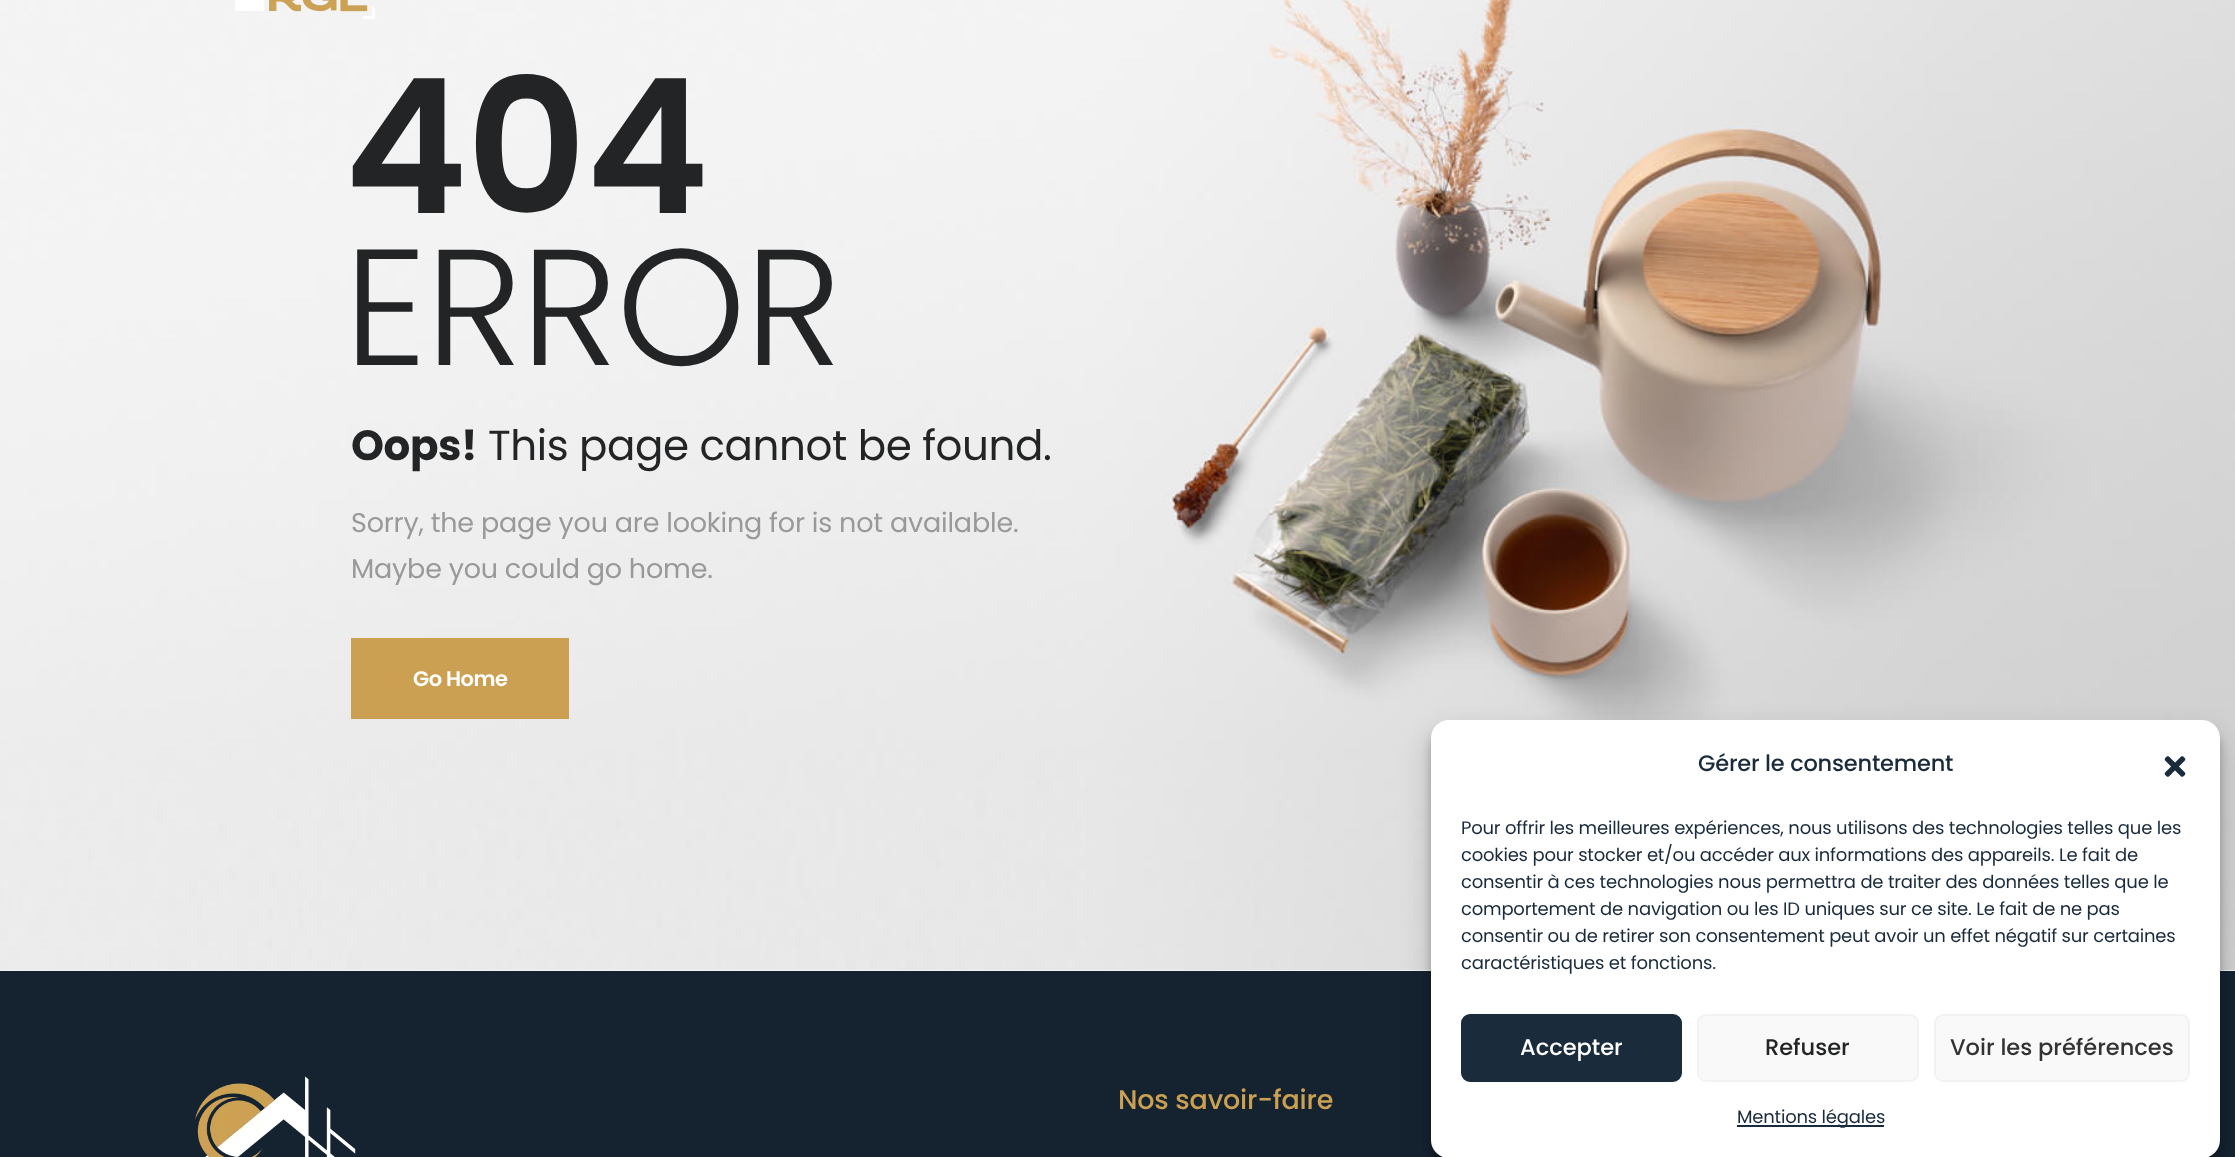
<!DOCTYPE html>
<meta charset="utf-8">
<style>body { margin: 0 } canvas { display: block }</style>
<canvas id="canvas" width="2235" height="1157"></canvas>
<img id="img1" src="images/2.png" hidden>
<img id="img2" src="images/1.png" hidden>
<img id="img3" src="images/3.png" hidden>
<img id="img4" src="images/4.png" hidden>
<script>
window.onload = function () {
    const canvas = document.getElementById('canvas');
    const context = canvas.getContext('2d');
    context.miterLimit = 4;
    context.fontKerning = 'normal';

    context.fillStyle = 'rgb(243, 243, 243)';
    context.fillRect(0, 0, 2235, 1157);
    context.drawImage(document.getElementById('img1'), 0, 0, 2235, 970);
    context.fillStyle = 'rgba(235, 235, 235, 0.15)';
    context.fillRect(1302, 62, 195, 2);
    context.drawImage(document.getElementById('img2'), 235, 0, 140, 19);
    context.fillStyle = 'rgb(203, 160, 82)';
    context.fillRect(351, 638, 218, 81);
    context.fillStyle = 'rgb(21, 35, 49)';
    context.fillRect(0, 971, 2235, 186);
    context.drawImage(document.getElementById('img3'), 195, 1076, 161, 81);
    context.fillStyle = 'rgba(0, 0, 0, 0.23)';
    context.filter = 'blur(4.5px)';
    context.beginPath();
    context.roundRect(1431, 729, 789, 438, 18);
    context.fill();
    context.filter = 'none';
    context.fillStyle = 'rgba(0, 0, 0, 0.19)';
    context.filter = 'blur(15px)';
    context.beginPath();
    context.roundRect(1431, 735, 789, 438, 18);
    context.fill();
    context.filter = 'none';
    context.fillStyle = 'rgb(255, 255, 255)';
    context.beginPath();
    context.roundRect(1431, 720, 789, 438, 18);
    context.fill();
    context.drawImage(document.getElementById('img4'), 2164, 756, 22, 21);
    context.fillStyle = 'rgb(26, 43, 60)';
    context.beginPath();
    context.roundRect(1462, 1015, 219, 66, 8);
    context.fill();
    context.strokeStyle = 'rgb(26, 43, 60)';
    context.lineWidth = 2;
    context.stroke();
    context.fillStyle = 'rgb(249, 249, 249)';
    context.beginPath();
    context.roundRect(1698, 1015, 220, 66, 8);
    context.fill();
    context.strokeStyle = 'rgb(242, 242, 242)';
    context.stroke();
    context.beginPath();
    context.roundRect(1935, 1015, 254, 66, 8);
    context.fill();
    context.stroke();
    context.fillStyle = 'rgb(26, 43, 60)';
    context.fillRect(1737, 1125, 147, 2);
    context.letterSpacing = '-1.5px';
    context.font = '600 187px Poppins';
    context.fillStyle = 'rgb(35, 36, 37)';
    context.fillText('404', 344, 213);
    context.font = '300 165px Poppins';
    context.fillText('ERROR', 344, 365);
    context.letterSpacing = '-0.4px';
    context.font = 'bold 42px Poppins';
    context.fillText('Oops!', 351, 460);
    context.font = '42px Poppins';
    context.fillText('This page cannot be found.', 488, 460);
    context.letterSpacing = '-0.2px';
    context.font = '27px Poppins';
    context.fillStyle = 'rgb(153, 153, 153)';
    context.fillText('Sorry, the page you are looking for is not available.', 351, 532);
    context.fillText('Maybe you could go home.', 351, 578);
    context.letterSpacing = '-0.5px';
    context.font = '600 21px Poppins';
    context.fillStyle = 'rgb(255, 255, 255)';
    context.fillText('Go Home', 413, 686);
    context.letterSpacing = '-0.2px';
    context.font = '500 27px Poppins';
    context.fillStyle = 'rgb(203, 160, 82)';
    context.fillText('Nos savoir-faire', 1118, 1109);
    context.font = '500 22.5px Poppins';
    context.fillStyle = 'rgb(26, 43, 60)';
    context.fillText('Gérer le consentement', 1698, 771);
    context.font = '18px Poppins';
    context.fillText('Pour offrir les meilleures expériences, nous utilisons des technologies telles que les', 1461, 834);
    context.fillText('cookies pour stocker et/ou accéder aux informations des appareils. Le fait de', 1461, 861);
    context.fillText('consentir à ces technologies nous permettra de traiter des données telles que le', 1461, 888);
    context.fillText('comportement de navigation ou les ID uniques sur ce site. Le fait de ne pas', 1461, 915);
    context.fillText('consentir ou de retirer son consentement peut avoir un effet négatif sur certaines', 1461, 942);
    context.fillText('caractéristiques et fonctions.', 1461, 969);
    context.letterSpacing = '0px';
    context.font = '500 22.5px Poppins';
    context.fillStyle = 'rgb(255, 255, 255)';
    context.fillText('Accepter', 1520, 1055);
    context.fillStyle = 'rgb(35, 36, 37)';
    context.fillText('Refuser', 1765, 1055);
    context.fillStyle = 'rgb(51, 51, 51)';
    context.fillText('Voir les préférences', 1950, 1055);
    context.letterSpacing = '-0.2px';
    context.font = '18px Poppins';
    context.fillStyle = 'rgb(26, 43, 60)';
    context.fillText('Mentions légales', 1737, 1123);
};
</script>
